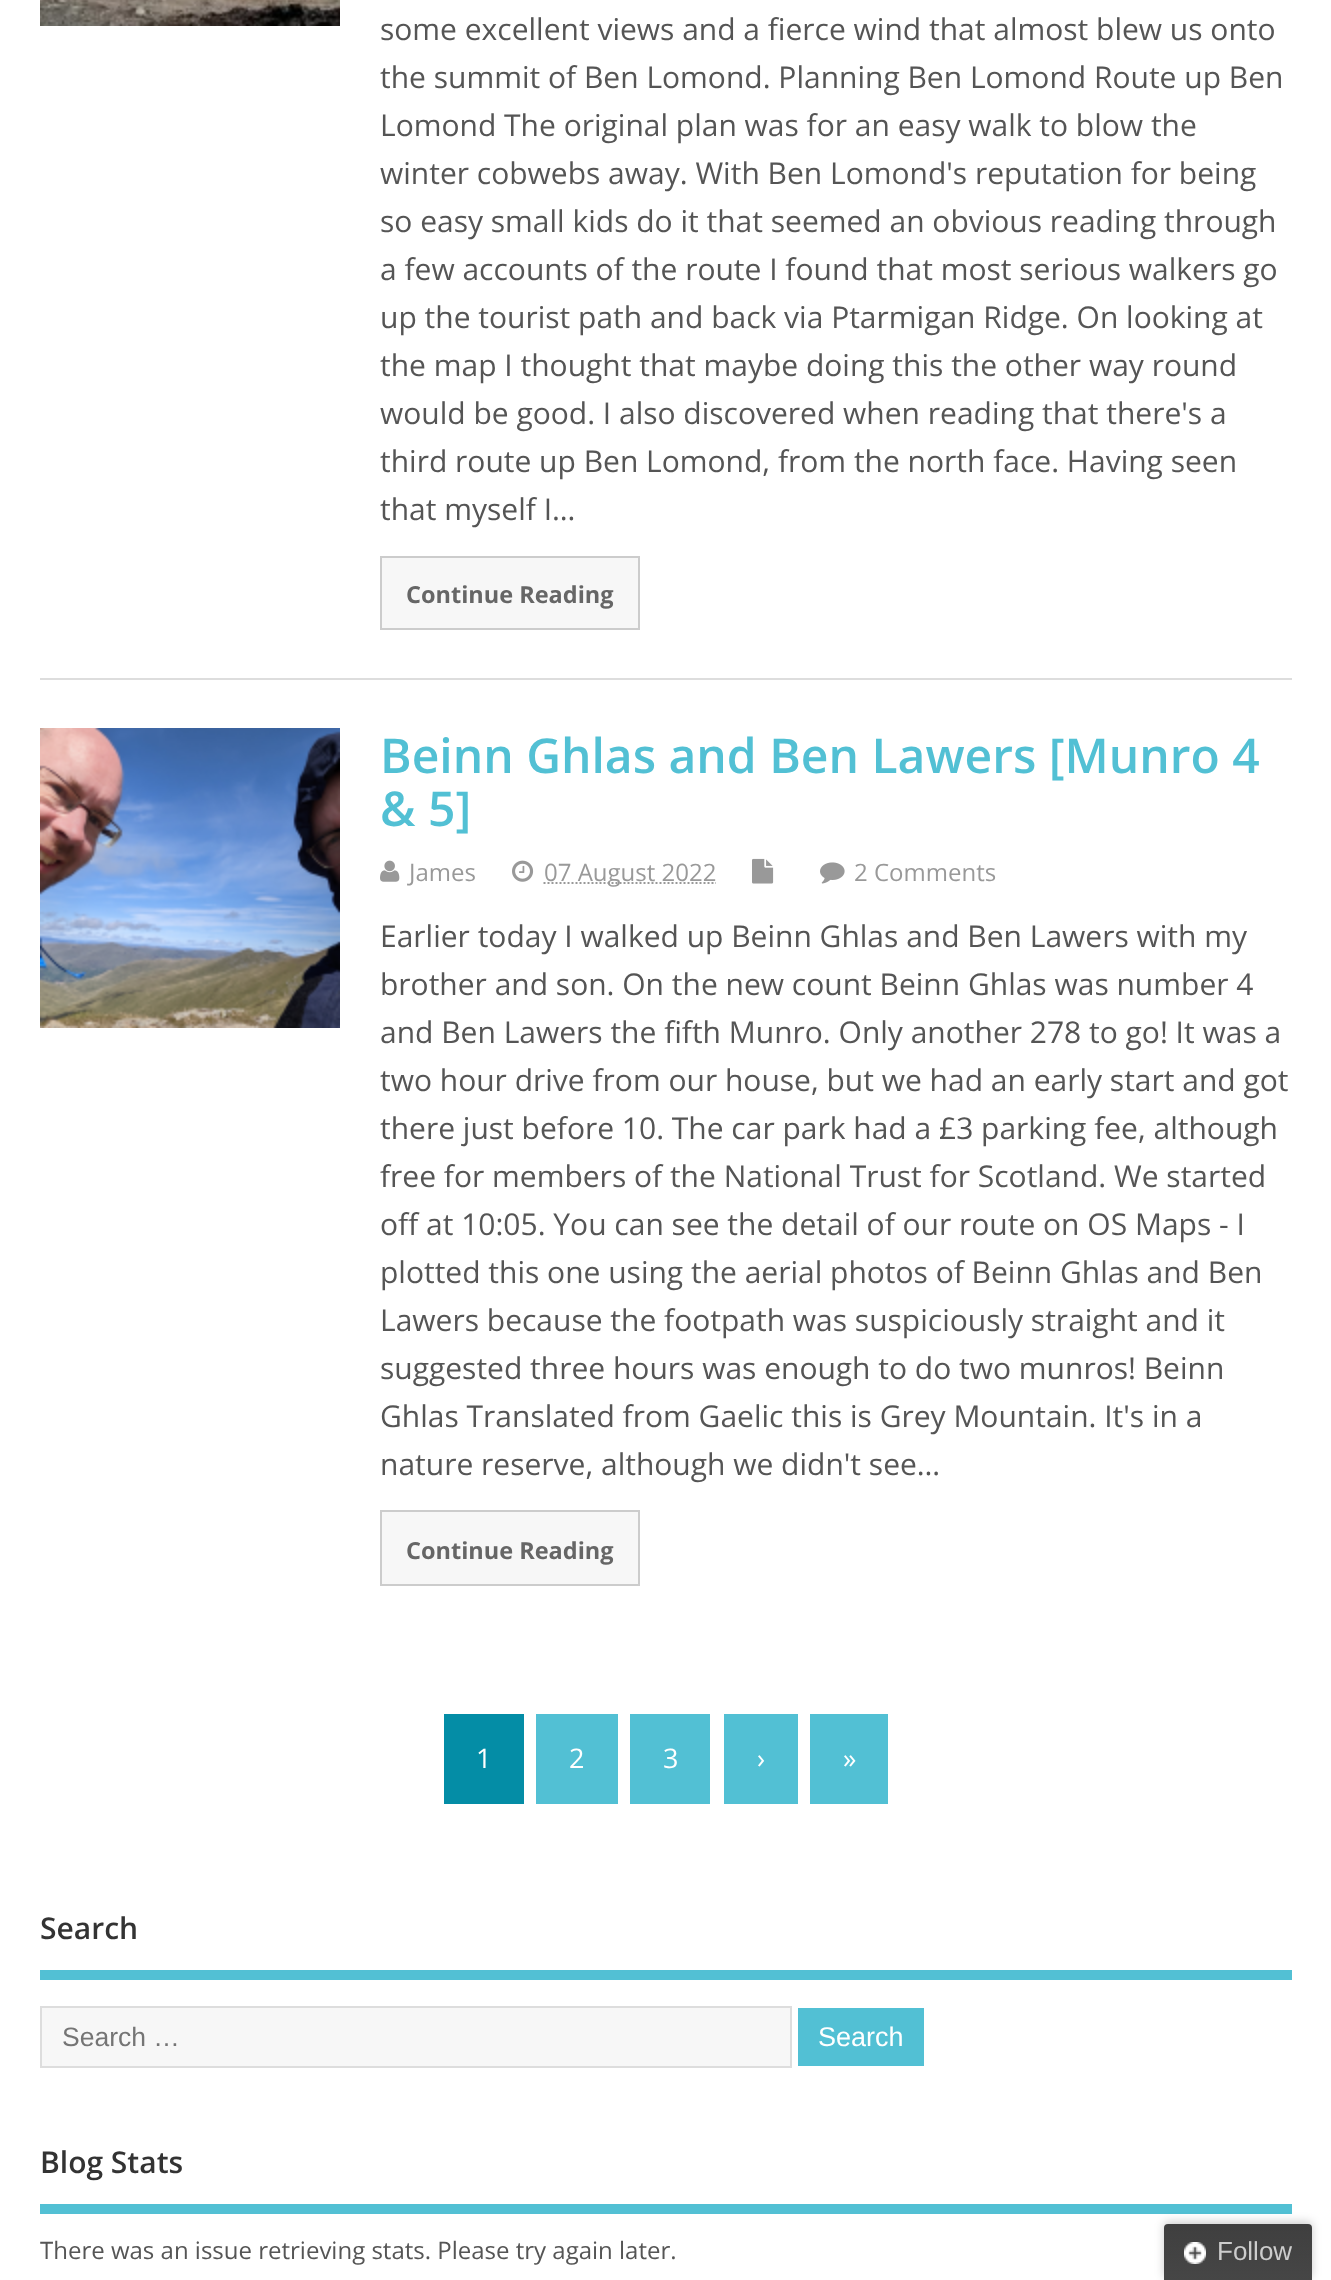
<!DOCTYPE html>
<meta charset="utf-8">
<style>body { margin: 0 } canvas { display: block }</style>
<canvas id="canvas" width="1331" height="2280"></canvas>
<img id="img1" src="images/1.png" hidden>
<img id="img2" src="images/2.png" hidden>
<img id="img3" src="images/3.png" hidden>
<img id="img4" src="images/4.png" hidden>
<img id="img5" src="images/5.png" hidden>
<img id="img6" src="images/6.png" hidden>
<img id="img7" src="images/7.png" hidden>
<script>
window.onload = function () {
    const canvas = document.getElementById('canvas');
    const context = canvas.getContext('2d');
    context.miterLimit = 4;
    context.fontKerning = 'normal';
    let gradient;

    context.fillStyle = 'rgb(255, 255, 255)';
    context.fillRect(0, 0, 1331, 2280);
    context.fillStyle = 'rgb(221, 221, 221)';
    context.fillRect(40, 678, 1252, 2);
    context.drawImage(document.getElementById('img1'), 40, 0, 300, 26);
    context.fillStyle = 'rgb(247, 247, 247)';
    context.beginPath();
    context.rect(381, 557, 258, 72);
    context.fill();
    context.strokeStyle = 'rgb(204, 204, 204)';
    context.lineWidth = 2;
    context.stroke();
    context.drawImage(document.getElementById('img2'), 40, 728, 300, 300);
    context.drawImage(document.getElementById('img3'), 380, 860, 20, 22);
    context.drawImage(document.getElementById('img4'), 512, 860, 22, 22);
    context.beginPath();
    context.moveTo(543.5, 883);
    context.lineTo(716, 883);
    context.strokeStyle = 'rgb(153, 153, 153)';
    context.setLineDash([2, 2]);
    context.stroke();
    context.drawImage(document.getElementById('img5'), 752, 858, 22, 26);
    context.drawImage(document.getElementById('img6'), 820, 862, 25, 22);
    context.beginPath();
    context.rect(381, 1511, 258, 74);
    context.fill();
    context.strokeStyle = 'rgb(204, 204, 204)';
    context.setLineDash([]);
    context.stroke();
    context.fillStyle = 'rgb(4, 141, 166)';
    context.fillRect(444, 1714, 80, 90);
    context.fillStyle = 'rgb(82, 192, 212)';
    context.fillRect(536, 1714, 82, 90);
    context.fillRect(630, 1714, 80, 90);
    context.fillRect(724, 1714, 74, 90);
    context.fillRect(810, 1714, 78, 90);
    context.fillRect(40, 1970, 1252, 10);
    context.fillStyle = 'rgb(247, 247, 247)';
    context.beginPath();
    context.rect(41, 2007, 750, 60);
    context.fill();
    context.strokeStyle = 'rgb(221, 221, 221)';
    context.stroke();
    context.fillStyle = 'rgb(82, 192, 212)';
    context.fillRect(798, 2008, 126, 58);
    context.fillRect(40, 2204, 1252, 10);
    context.fillStyle = 'rgba(0, 0, 0, 0.2)';
    context.filter = 'blur(5px)';
    context.beginPath();
    context.roundRect(1164, 2222, 148, 56, 4);
    context.fill();
    context.filter = 'none';
    gradient = context.createLinearGradient(1164, 2224, 1164, 2280);
    gradient.addColorStop(0, 'rgb(63, 63, 63)');
    gradient.addColorStop(1, 'rgb(70, 70, 70)');
    context.fillStyle = gradient;
    context.beginPath();
    context.roundRect(1164, 2224, 148, 56, [4, 4, 0, 0]);
    context.fill();
    context.drawImage(document.getElementById('img7'), 1184, 2242, 22, 22);
    context.font = '30px Open Sans';
    context.fillStyle = 'rgb(85, 85, 85)';
    context.fillText('some excellent views and a fierce wind that almost blew us onto', 380, 40);
    context.fillText('the summit of Ben Lomond. Planning Ben Lomond Route up Ben', 380, 88);
    context.fillText('Lomond The original plan was for an easy walk to blow the', 380, 136);
    context.fillText('winter cobwebs away. With Ben Lomond\'s reputation for being', 380, 184);
    context.fillText('so easy small kids do it that seemed an obvious reading through', 380, 232);
    context.fillText('a few accounts of the route I found that most serious walkers go', 380, 280);
    context.fillText('up the tourist path and back via Ptarmigan Ridge. On looking at', 380, 328);
    context.fillText('the map I thought that maybe doing this the other way round', 380, 376);
    context.fillText('would be good. I also discovered when reading that there\'s a', 380, 424);
    context.fillText('third route up Ben Lomond, from the north face. Having seen', 380, 472);
    context.fillText('that myself I…', 380, 520);
    context.font = 'bold 23.5px Open Sans';
    context.fillStyle = 'rgb(102, 102, 102)';
    context.fillText('Continue Reading', 406, 603);
    context.font = '600 48px Open Sans';
    context.fillStyle = 'rgb(82, 192, 212)';
    context.fillText('Beinn Ghlas and Ben Lawers [Munro 4', 380, 773);
    context.fillText('& 5]', 380, 826);
    context.font = '24px Open Sans';
    context.fillStyle = 'rgb(153, 153, 153)';
    context.fillText('James', 409, 881);
    context.fillText('07 August 2022', 544, 881);
    context.fillText('2 Comments', 854, 881);
    context.font = '30px Open Sans';
    context.fillStyle = 'rgb(85, 85, 85)';
    context.fillText('Earlier today I walked up Beinn Ghlas and Ben Lawers with my', 380, 947);
    context.fillText('brother and son. On the new count Beinn Ghlas was number 4', 380, 995);
    context.fillText('and Ben Lawers the fifth Munro. Only another 278 to go! It was a', 380, 1043);
    context.fillText('two hour drive from our house, but we had an early start and got', 380, 1091);
    context.fillText('there just before 10. The car park had a £3 parking fee, although', 380, 1139);
    context.fillText('free for members of the National Trust for Scotland. We started', 380, 1187);
    context.fillText('off at 10:05. You can see the detail of our route on OS Maps - I', 380, 1235);
    context.fillText('plotted this one using the aerial photos of Beinn Ghlas and Ben', 380, 1283);
    context.fillText('Lawers because the footpath was suspiciously straight and it', 380, 1331);
    context.fillText('suggested three hours was enough to do two munros! Beinn', 380, 1379);
    context.fillText('Ghlas Translated from Gaelic this is Grey Mountain. It\'s in a', 380, 1427);
    context.fillText('nature reserve, although we didn\'t see…', 380, 1475);
    context.font = 'bold 23.5px Open Sans';
    context.fillStyle = 'rgb(102, 102, 102)';
    context.fillText('Continue Reading', 406, 1559);
    context.font = '27px Open Sans';
    context.fillStyle = 'rgb(255, 255, 255)';
    context.fillText('1', 476, 1768);
    context.fillText('2', 569, 1768);
    context.fillText('3', 663, 1768);
    context.fillText('›', 757, 1768);
    context.fillText('»', 843, 1768);
    context.font = '600 30px Open Sans';
    context.fillStyle = 'rgb(51, 51, 51)';
    context.fillText('Search', 40, 1939);
    context.font = '26.5px Liberation Sans';
    context.fillStyle = 'rgb(117, 117, 117)';
    context.fillText('Search …', 62, 2046);
    context.font = '27px Liberation Sans';
    context.fillStyle = 'rgb(255, 255, 255)';
    context.fillText('Search', 818, 2046);
    context.font = '600 30px Open Sans';
    context.fillStyle = 'rgb(51, 51, 51)';
    context.fillText('Blog Stats', 40, 2173);
    context.font = '24px Open Sans';
    context.fillStyle = 'rgb(85, 85, 85)';
    context.fillText('There was an issue retrieving stats. Please try again later.', 40, 2259);
    context.font = '26px Liberation Sans';
    context.fillStyle = 'rgb(204, 204, 204)';
    context.fillText('Follow', 1217, 2260);
};
</script>
